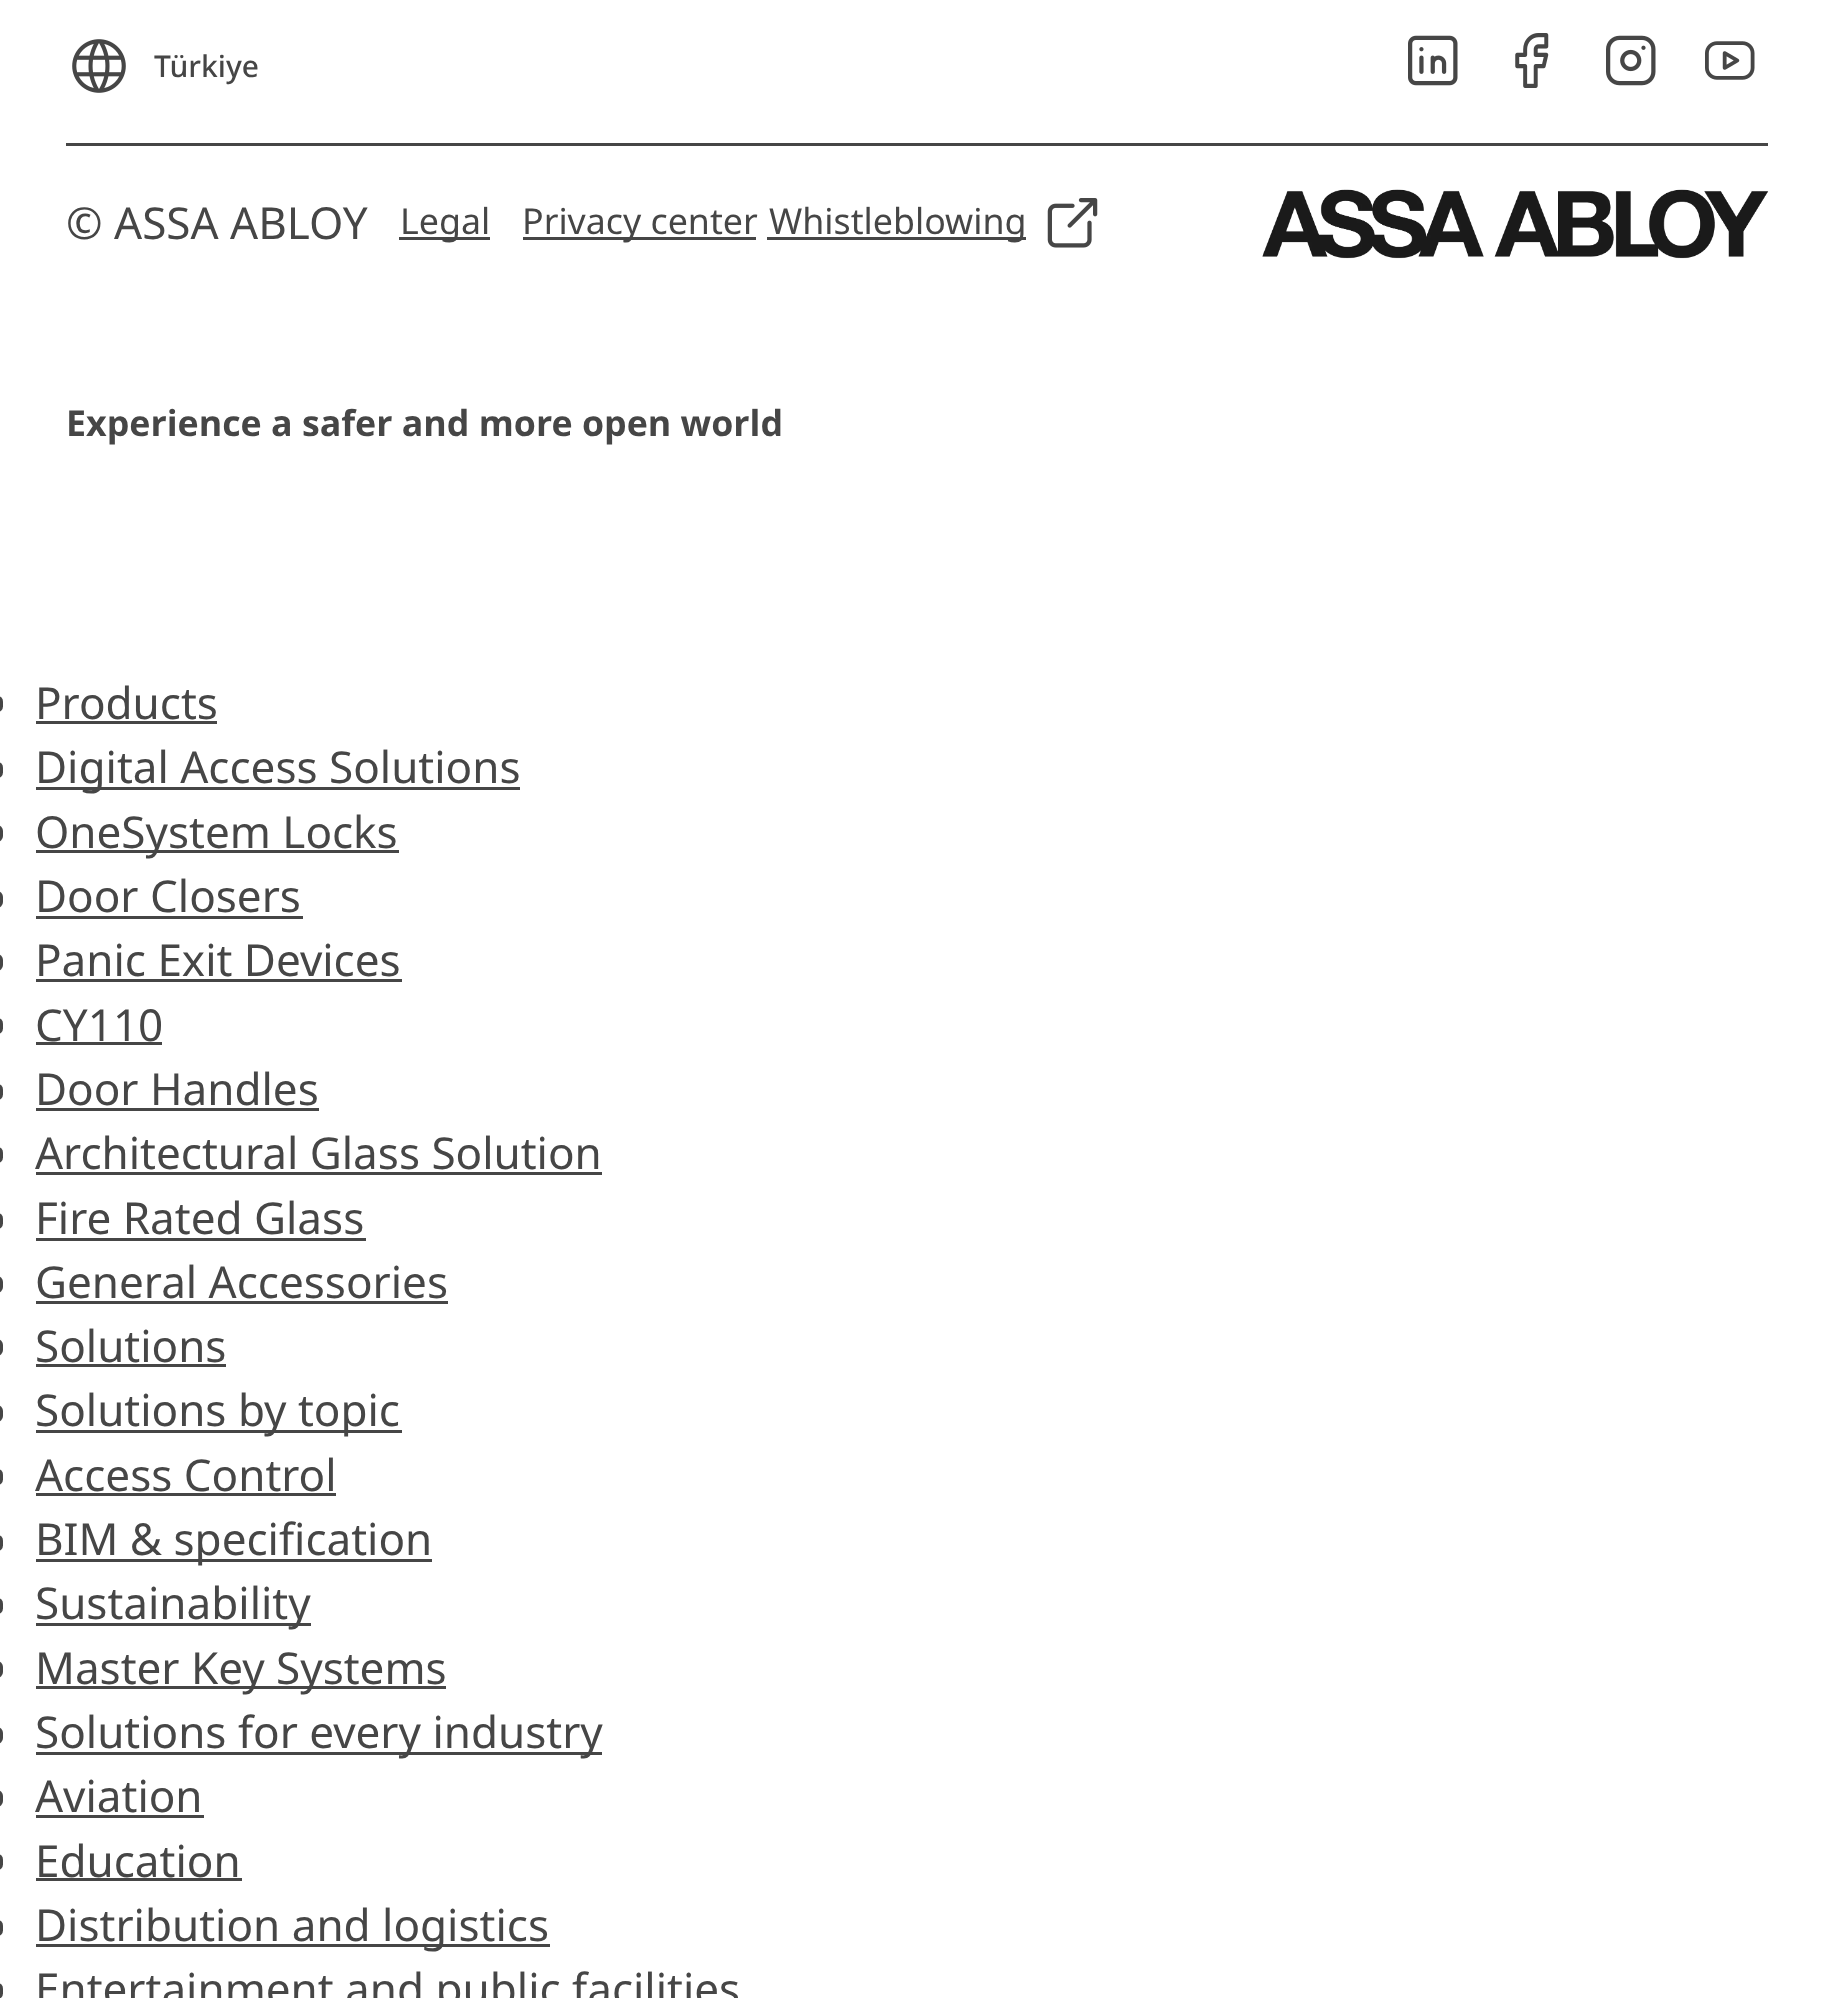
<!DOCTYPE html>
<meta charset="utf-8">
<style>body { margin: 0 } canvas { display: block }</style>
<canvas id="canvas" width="1832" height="1998"></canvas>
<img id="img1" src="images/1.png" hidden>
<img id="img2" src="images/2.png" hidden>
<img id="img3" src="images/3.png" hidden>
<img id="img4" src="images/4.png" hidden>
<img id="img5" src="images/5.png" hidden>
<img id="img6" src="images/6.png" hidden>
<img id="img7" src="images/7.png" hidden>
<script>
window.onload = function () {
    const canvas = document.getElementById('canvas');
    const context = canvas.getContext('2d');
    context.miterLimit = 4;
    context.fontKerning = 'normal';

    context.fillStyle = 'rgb(255, 255, 255)';
    context.fillRect(0, 0, 1832, 1998);
    context.drawImage(document.getElementById('img1'), 72, 39, 54, 54);
    context.drawImage(document.getElementById('img2'), 1408, 35, 50, 51);
    context.drawImage(document.getElementById('img3'), 1515, 33, 34, 55);
    context.drawImage(document.getElementById('img4'), 1606, 35, 50, 51);
    context.drawImage(document.getElementById('img5'), 1705, 41, 50, 39);
    context.fillStyle = 'rgb(70, 70, 70)';
    context.fillRect(66, 143, 1702, 3);
    context.fillRect(399, 237, 91, 3);
    context.fillRect(523, 237, 233, 3);
    context.fillRect(767, 237, 259, 3);
    context.drawImage(document.getElementById('img6'), 1047, 198, 51, 50);
    context.drawImage(document.getElementById('img7'), 1262, 189, 507, 70);
    context.beginPath();
    context.roundRect(-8, 696, 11, 16, 8);
    context.fill();
    context.fillRect(36, 721, 181, 3);
    context.beginPath();
    context.roundRect(-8, 762, 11, 16, 8);
    context.fill();
    context.fillRect(36, 787, 484, 3);
    context.beginPath();
    context.roundRect(-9, 825, 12, 17, 8.5);
    context.fill();
    context.fillRect(36, 850, 363, 3);
    context.beginPath();
    context.roundRect(-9, 891, 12, 17, 8.5);
    context.fill();
    context.fillRect(36, 916, 267, 3);
    context.beginPath();
    context.roundRect(-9, 954, 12, 17, 8.5);
    context.fill();
    context.fillRect(36, 979, 366, 3);
    context.beginPath();
    context.roundRect(-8, 1018, 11, 16, 8);
    context.fill();
    context.fillRect(36, 1042, 126, 3);
    context.beginPath();
    context.roundRect(-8, 1084, 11, 16, 8);
    context.fill();
    context.fillRect(36, 1108, 283, 3);
    context.beginPath();
    context.roundRect(-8, 1147, 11, 16, 8);
    context.fill();
    context.fillRect(36, 1172, 566, 3);
    context.beginPath();
    context.roundRect(-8, 1213, 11, 16, 8);
    context.fill();
    context.fillRect(36, 1238, 330, 3);
    context.beginPath();
    context.roundRect(-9, 1276, 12, 17, 8.5);
    context.fill();
    context.fillRect(36, 1301, 412, 3);
    context.beginPath();
    context.roundRect(-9, 1339, 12, 17, 8.5);
    context.fill();
    context.fillRect(36, 1364, 190, 3);
    context.beginPath();
    context.roundRect(-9, 1405, 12, 17, 8.5);
    context.fill();
    context.fillRect(36, 1430, 366, 3);
    context.beginPath();
    context.roundRect(-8, 1469, 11, 16, 8);
    context.fill();
    context.fillRect(36, 1493, 300, 3);
    context.beginPath();
    context.roundRect(-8, 1535, 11, 16, 8);
    context.fill();
    context.fillRect(36, 1559, 396, 3);
    context.beginPath();
    context.roundRect(-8, 1598, 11, 16, 8);
    context.fill();
    context.fillRect(36, 1623, 275, 3);
    context.beginPath();
    context.roundRect(-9, 1661, 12, 17, 8.5);
    context.fill();
    context.fillRect(36, 1686, 410, 3);
    context.beginPath();
    context.roundRect(-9, 1727, 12, 17, 8.5);
    context.fill();
    context.fillRect(36, 1752, 566, 3);
    context.beginPath();
    context.roundRect(-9, 1790, 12, 17, 8.5);
    context.fill();
    context.fillRect(36, 1815, 168, 3);
    context.beginPath();
    context.roundRect(-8, 1854, 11, 16, 8);
    context.fill();
    context.fillRect(36, 1878, 206, 3);
    context.beginPath();
    context.roundRect(-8, 1920, 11, 16, 8);
    context.fill();
    context.fillRect(36, 1944, 514, 3);
    context.beginPath();
    context.roundRect(-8, 1983, 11, 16, 8);
    context.fill();
    context.font = '500 30px Noto Sans';
    context.fillText('Türkiye', 154, 77);
    context.font = '44px Noto Sans';
    context.fillText('© ASSA ABLOY', 66, 239);
    context.font = '35.75px Noto Sans';
    context.fillText('Legal', 400, 234);
    context.fillText('Privacy center', 522, 234);
    context.fillText('Whistleblowing', 769, 234);
    context.font = 'bold 35.75px Noto Sans';
    context.fillText('Experience a safer and more open world', 66, 436);
    context.font = '44px Noto Sans';
    context.fillText('Products', 35, 719);
    context.fillText('Digital Access Solutions', 35, 783);
    context.fillText('OneSystem Locks', 35, 848);
    context.fillText('Door Closers', 35, 912);
    context.fillText('Panic Exit Devices', 35, 976);
    context.fillText('CY110', 35, 1041);
    context.fillText('Door Handles', 35, 1105);
    context.fillText('Architectural Glass Solution', 35, 1169);
    context.fillText('Fire Rated Glass', 35, 1234);
    context.fillText('General Accessories', 35, 1298);
    context.fillText('Solutions', 35, 1362);
    context.fillText('Solutions by topic', 35, 1426);
    context.fillText('Access Control', 35, 1491);
    context.fillText('BIM & specification', 35, 1555);
    context.fillText('Sustainability', 35, 1619);
    context.fillText('Master Key Systems', 35, 1684);
    context.fillText('Solutions for every industry', 35, 1748);
    context.fillText('Aviation', 35, 1812);
    context.fillText('Education', 35, 1877);
    context.fillText('Distribution and logistics', 35, 1941);
    context.fillText('Entertainment and public facilities', 35, 2005);
};
</script>
